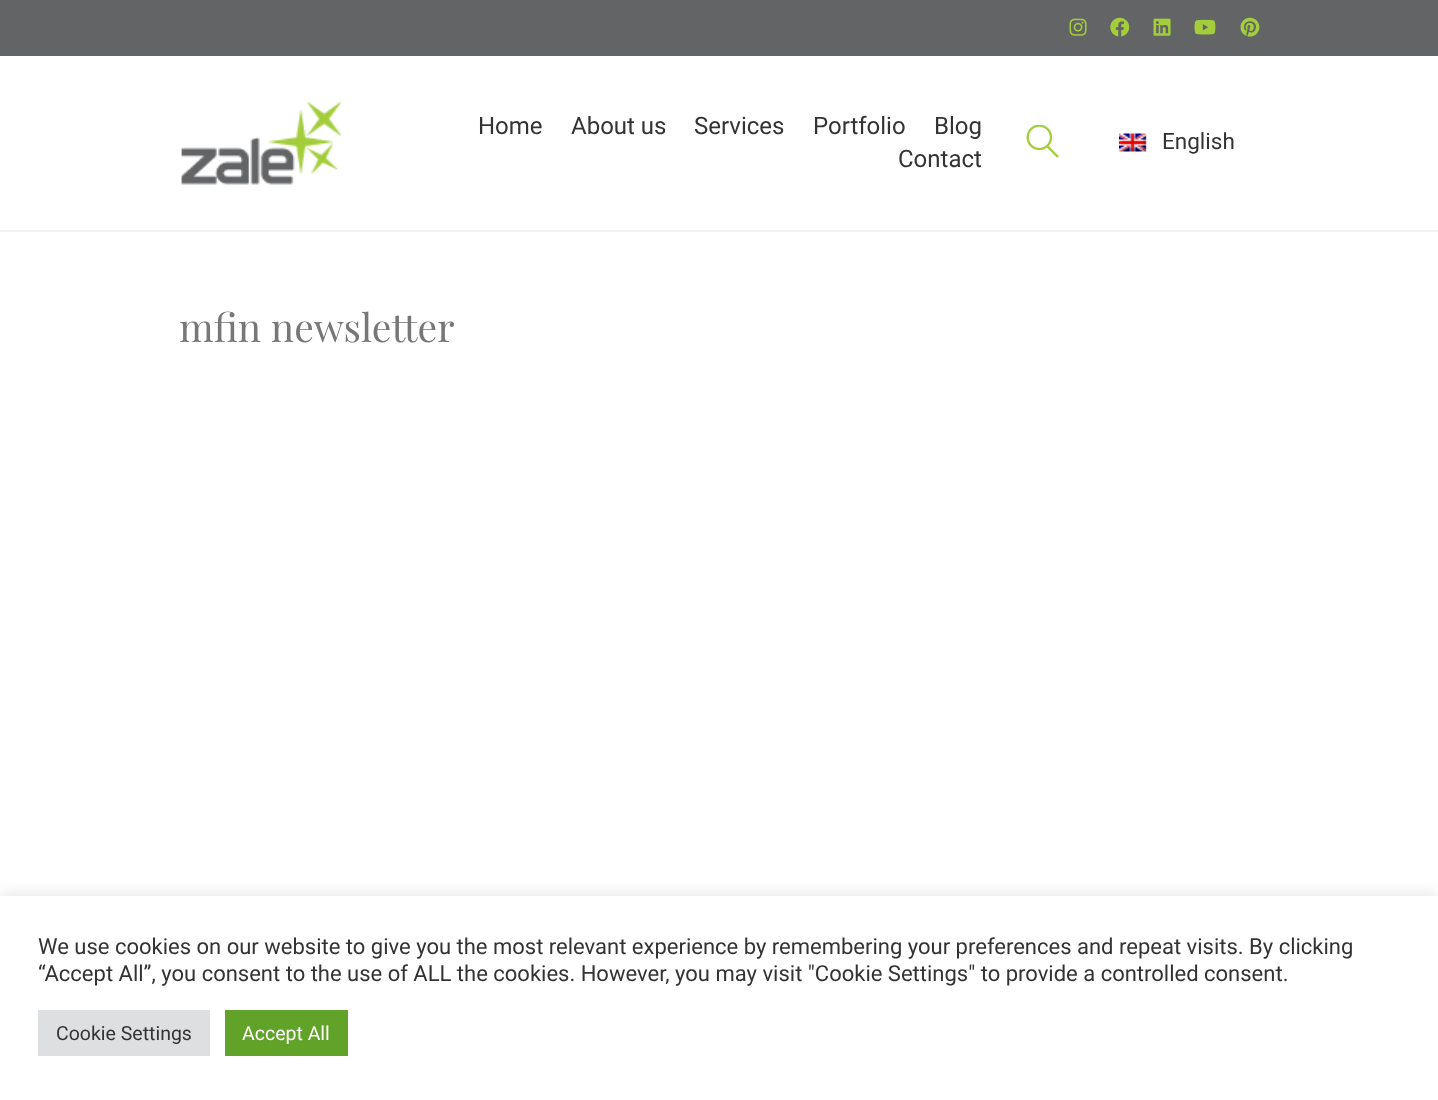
<!DOCTYPE html>
<meta charset="utf-8">
<style>body { margin: 0 } canvas { display: block }</style>
<canvas id="canvas" width="1438" height="1100"></canvas>
<img id="img1" src="images/1.png" hidden>
<img id="img2" src="images/2.png" hidden>
<img id="img3" src="images/3.png" hidden>
<img id="img4" src="images/4.png" hidden>
<img id="img5" src="images/5.png" hidden>
<img id="img6" src="images/6.png" hidden>
<img id="img7" src="images/7.png" hidden>
<img id="img8" src="images/8.png" hidden>
<script>
window.onload = function () {
    const canvas = document.getElementById('canvas');
    const context = canvas.getContext('2d');
    context.miterLimit = 4;
    context.fontKerning = 'normal';

    context.fillStyle = 'rgb(255, 255, 255)';
    context.fillRect(0, 0, 1438, 1100);
    context.fillStyle = 'rgb(99, 100, 102)';
    context.fillRect(0, 0, 1438, 56);
    context.drawImage(document.getElementById('img1'), 1069, 18, 18, 18);
    context.drawImage(document.getElementById('img2'), 1110, 17, 20, 20);
    context.drawImage(document.getElementById('img3'), 1153, 18, 18, 18);
    context.drawImage(document.getElementById('img4'), 1194, 19, 22, 16);
    context.drawImage(document.getElementById('img5'), 1240, 17, 20, 20);
    context.fillStyle = 'rgb(243, 243, 243)';
    context.fillRect(0, 230, 1438, 2);
    context.drawImage(document.getElementById('img6'), 181, 101, 161, 84);
    context.drawImage(document.getElementById('img7'), 1026, 125, 33, 33);
    context.drawImage(document.getElementById('img8'), 1119, 133, 28, 19);
    context.save();
    context.beginPath();
    context.rect(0, 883, 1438, 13);
    context.clip();
    context.fillStyle = 'rgba(172, 171, 171, 0.3)';
    context.filter = 'blur(7.5px)';
    context.beginPath();
    context.rect(0, 894, 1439, 206);
    context.fill();
    context.filter = 'none';
    context.restore();
    context.fillStyle = 'rgb(222, 223, 224)';
    context.fillRect(38, 1010, 172, 46);
    context.fillStyle = 'rgb(97, 162, 41)';
    context.fillRect(225, 1010, 123, 46);
    context.font = '24px Roboto';
    context.fillStyle = 'rgb(51, 51, 51)';
    context.fillText('Home', 478, 134);
    context.fillText('About us', 571, 134);
    context.fillText('Services', 694, 134);
    context.fillText('Portfolio', 813, 134);
    context.fillText('Blog', 934, 134);
    context.fillText('Contact', 898, 167);
    context.font = '22.5px Roboto';
    context.fillText('English', 1162, 149);
    context.font = '39px Playfair Display';
    context.fillStyle = 'rgb(119, 119, 119)';
    context.fillText('mfin newsletter', 179, 342);
    context.font = '22px Roboto';
    context.fillStyle = 'rgb(51, 51, 51)';
    context.fillText('We use cookies on our website to give you the most relevant experience by remembering your preferences and repeat visits. By clicking', 38, 954);
    context.fillText('“Accept All”, you consent to the use of ALL the cookies. However, you may visit "Cookie Settings" to provide a controlled consent.', 38, 981);
    context.font = '19.5px Roboto';
    context.fillText('Cookie Settings', 56, 1040);
    context.fillStyle = 'rgb(255, 255, 255)';
    context.fillText('Accept All', 242, 1040);
};
</script>
